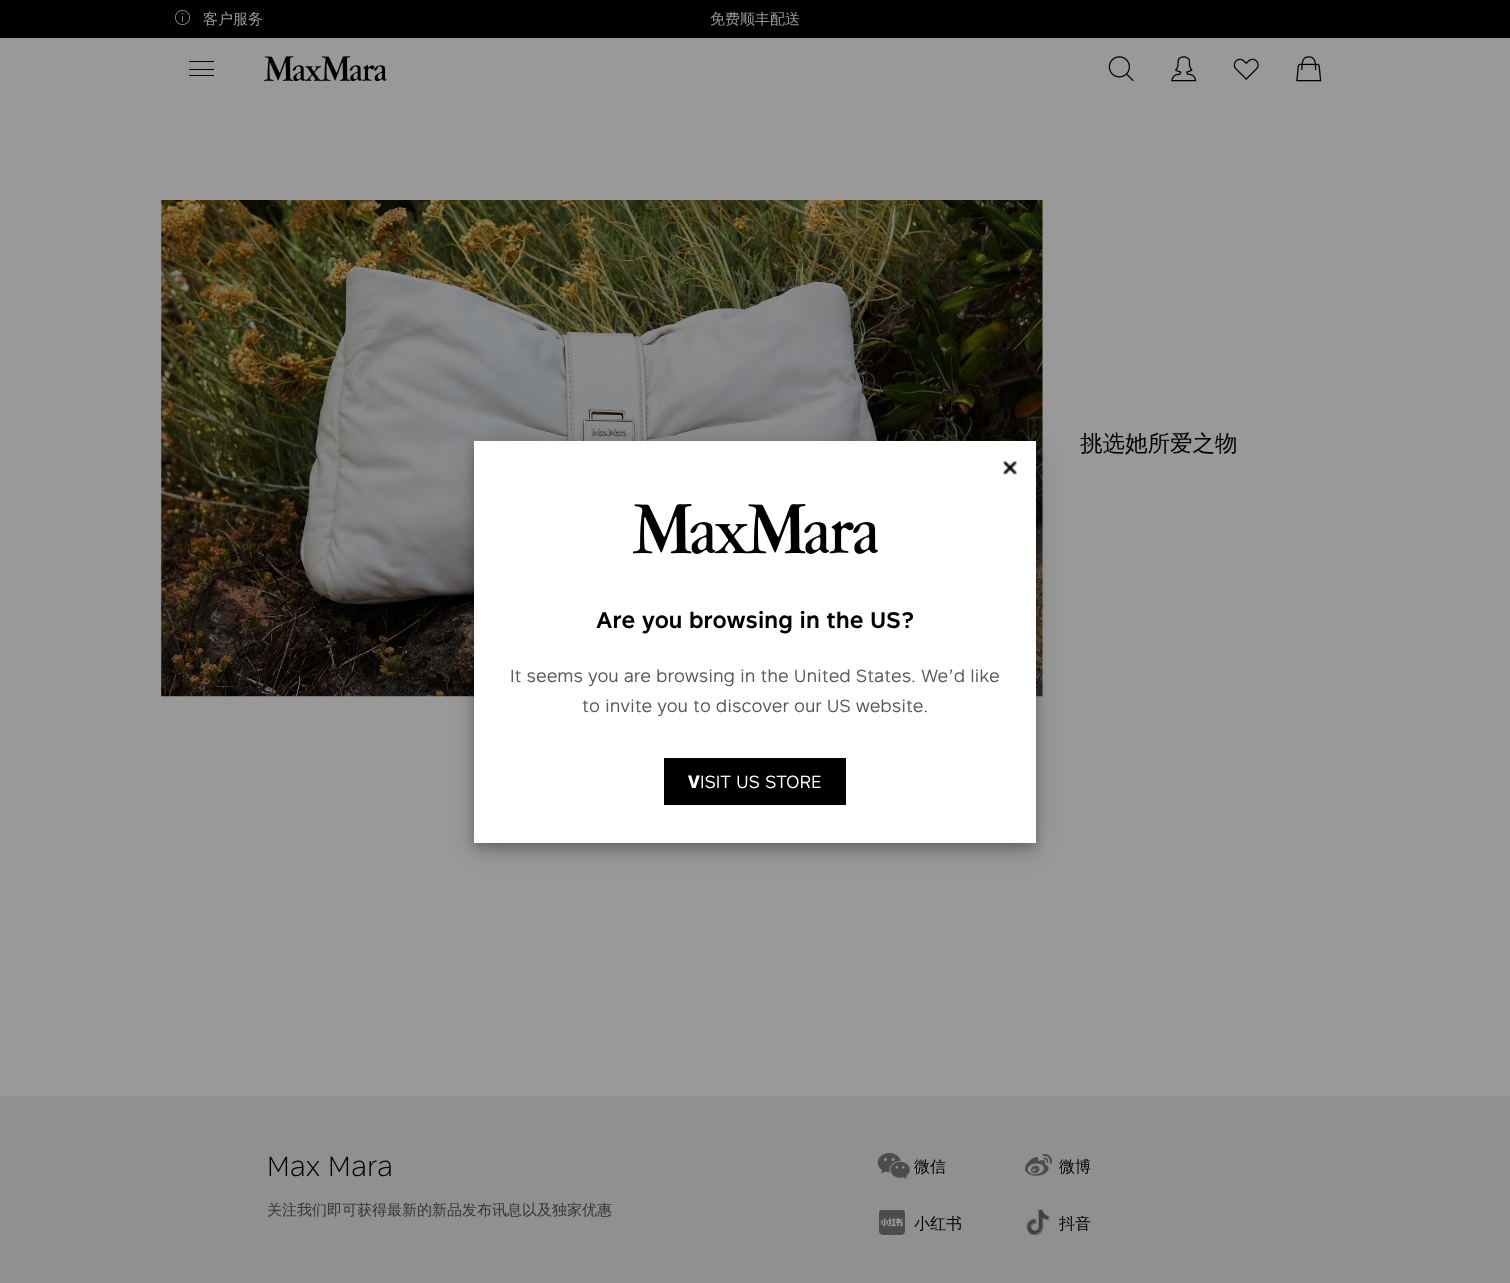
<!DOCTYPE html>
<meta charset="utf-8">
<style>body { margin: 0 } canvas { display: block }</style>
<canvas id="canvas" width="1510" height="1283"></canvas>
<img id="img1" src="images/1.png" hidden>
<img id="img2" src="images/2.png" hidden>
<img id="img3" src="images/3.png" hidden>
<img id="img4" src="images/4.png" hidden>
<img id="img5" src="images/5.png" hidden>
<img id="img6" src="images/6.png" hidden>
<img id="img7" src="images/7.png" hidden>
<img id="img8" src="images/8.png" hidden>
<img id="img9" src="images/9.png" hidden>
<img id="img10" src="images/10.png" hidden>
<img id="img11" src="images/11.png" hidden>
<img id="img12" src="images/12.png" hidden>
<img id="img13" src="images/13.png" hidden>
<script>
window.onload = function () {
    const canvas = document.getElementById('canvas');
    const context = canvas.getContext('2d');
    context.miterLimit = 4;
    context.fontKerning = 'normal';

    context.fillStyle = 'rgb(153, 153, 153)';
    context.fillRect(0, 0, 1510, 1283);
    context.fillStyle = 'rgb(0, 0, 0)';
    context.fillRect(0, 0, 1510, 38);
    context.drawImage(document.getElementById('img1'), 175, 10, 15, 15);
    context.fillRect(189, 61, 25, 1);
    context.fillRect(189, 69, 25, 1);
    context.fillRect(189, 75, 25, 1);
    context.drawImage(document.getElementById('img2'), 1108, 56, 26, 26);
    context.drawImage(document.getElementById('img3'), 1171, 56, 26, 26);
    context.drawImage(document.getElementById('img4'), 1233, 58, 26, 22);
    context.drawImage(document.getElementById('img5'), 1296, 56, 26, 26);
    context.drawImage(document.getElementById('img6'), 264, 56, 123, 25);
    context.drawImage(document.getElementById('img7'), 161, 200, 882, 497);
    context.fillStyle = 'rgba(0, 0, 0, 0.19)';
    context.filter = 'blur(12.5px)';
    context.beginPath();
    context.rect(474, 449, 562, 401);
    context.fill();
    context.filter = 'none';
    context.fillStyle = 'rgba(0, 0, 0, 0.2)';
    context.filter = 'blur(5px)';
    context.beginPath();
    context.rect(474, 446, 562, 402);
    context.fill();
    context.filter = 'none';
    context.fillStyle = 'rgb(255, 255, 255)';
    context.fillRect(474, 441, 562, 402);
    context.drawImage(document.getElementById('img8'), 1003, 460, 14, 15);
    context.drawImage(document.getElementById('img9'), 633, 504, 245, 50);
    context.fillStyle = 'rgb(0, 0, 0)';
    context.fillRect(664, 758, 182, 47);
    context.fillStyle = 'rgb(144, 144, 144)';
    context.fillRect(0, 1096, 1510, 187);
    context.drawImage(document.getElementById('img10'), 877, 1153, 33, 26);
    context.drawImage(document.getElementById('img11'), 1025, 1154, 27, 22);
    context.drawImage(document.getElementById('img12'), 879, 1210, 26, 25);
    context.drawImage(document.getElementById('img13'), 1026, 1209, 24, 26);
    context.font = '500 15px WenQuanYi Zen Hei';
    context.fillStyle = 'rgb(153, 153, 153)';
    context.fillText('客户服务', 203, 24);
    context.fillText('免费顺丰配送', 710, 24);
    context.font = '500 22.5px WenQuanYi Zen Hei';
    context.fillStyle = 'rgb(0, 0, 0)';
    context.fillText('挑选她所爱之物', 1080, 451);
    context.font = '600 22.5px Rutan';
    context.fillText('Are you browsing in the US?', 596, 628);
    context.font = '17.5px Rutan';
    context.fillStyle = 'rgb(89, 89, 89)';
    context.fillText('It seems you are browsing in the United States. We’d like', 510, 682);
    context.fillText('to invite you to discover our US website.', 582, 712);
    context.font = '800 17.5px Noto Sans';
    context.fillStyle = 'rgb(255, 255, 255)';
    context.fillText('V', 688, 788);
    context.font = '17.5px Rutan';
    context.fillText('ISIT US STORE', 700, 788);
    context.font = '300 27.5px Rutan';
    context.fillStyle = 'rgb(0, 0, 0)';
    context.fillText('Max Mara', 267, 1176);
    context.font = '500 15px WenQuanYi Zen Hei';
    context.fillStyle = 'rgb(53, 53, 53)';
    context.fillText('关注我们即可获得最新的新品发布讯息以及独家优惠', 267, 1215);
    context.font = '500 16px WenQuanYi Zen Hei';
    context.fillStyle = 'rgb(0, 0, 0)';
    context.fillText('微信', 914, 1172);
    context.fillText('微博', 1059, 1172);
    context.fillText('小红书', 914, 1229);
    context.fillText('抖音', 1059, 1229);
};
</script>
